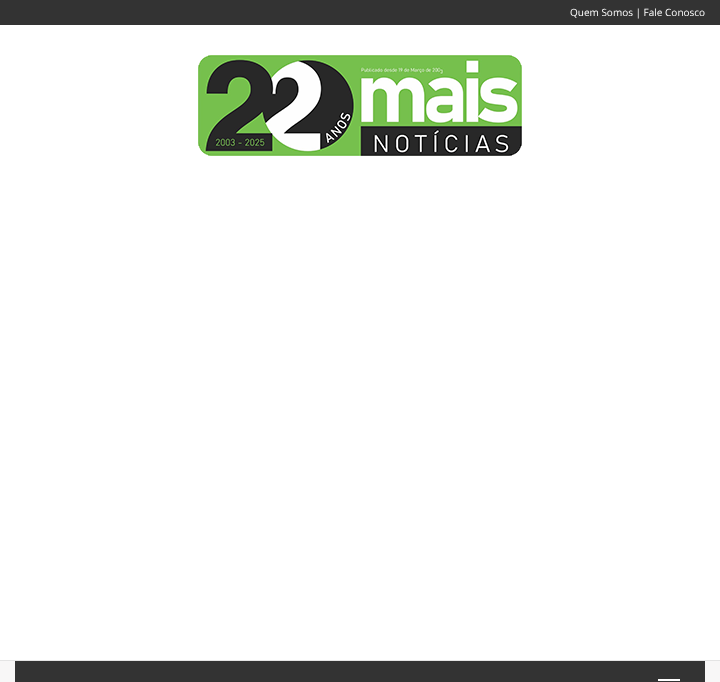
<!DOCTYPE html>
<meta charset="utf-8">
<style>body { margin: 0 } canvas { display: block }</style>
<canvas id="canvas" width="720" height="682"></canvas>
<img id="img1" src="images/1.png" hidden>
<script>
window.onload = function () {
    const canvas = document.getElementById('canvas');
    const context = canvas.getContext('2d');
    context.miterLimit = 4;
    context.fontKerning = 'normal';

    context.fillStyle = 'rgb(255, 255, 255)';
    context.fillRect(0, 0, 720, 682);
    context.fillStyle = 'rgb(51, 51, 51)';
    context.fillRect(0, 0, 720, 25);
    context.drawImage(document.getElementById('img1'), 198, 55, 324, 101);
    context.fillStyle = 'rgb(248, 247, 247)';
    context.fillRect(0, 661, 720, 21);
    context.fillStyle = 'rgb(228, 228, 228)';
    context.fillRect(0, 660, 720, 1);
    context.fillStyle = 'rgb(51, 51, 51)';
    context.fillRect(15, 661, 690, 21);
    context.fillStyle = 'rgb(255, 255, 255)';
    context.fillRect(658, 679, 22, 2);
    context.font = '10px Open Sans';
    context.fillText('Quem Somos | Fale Conosco', 570, 16);
};
</script>
